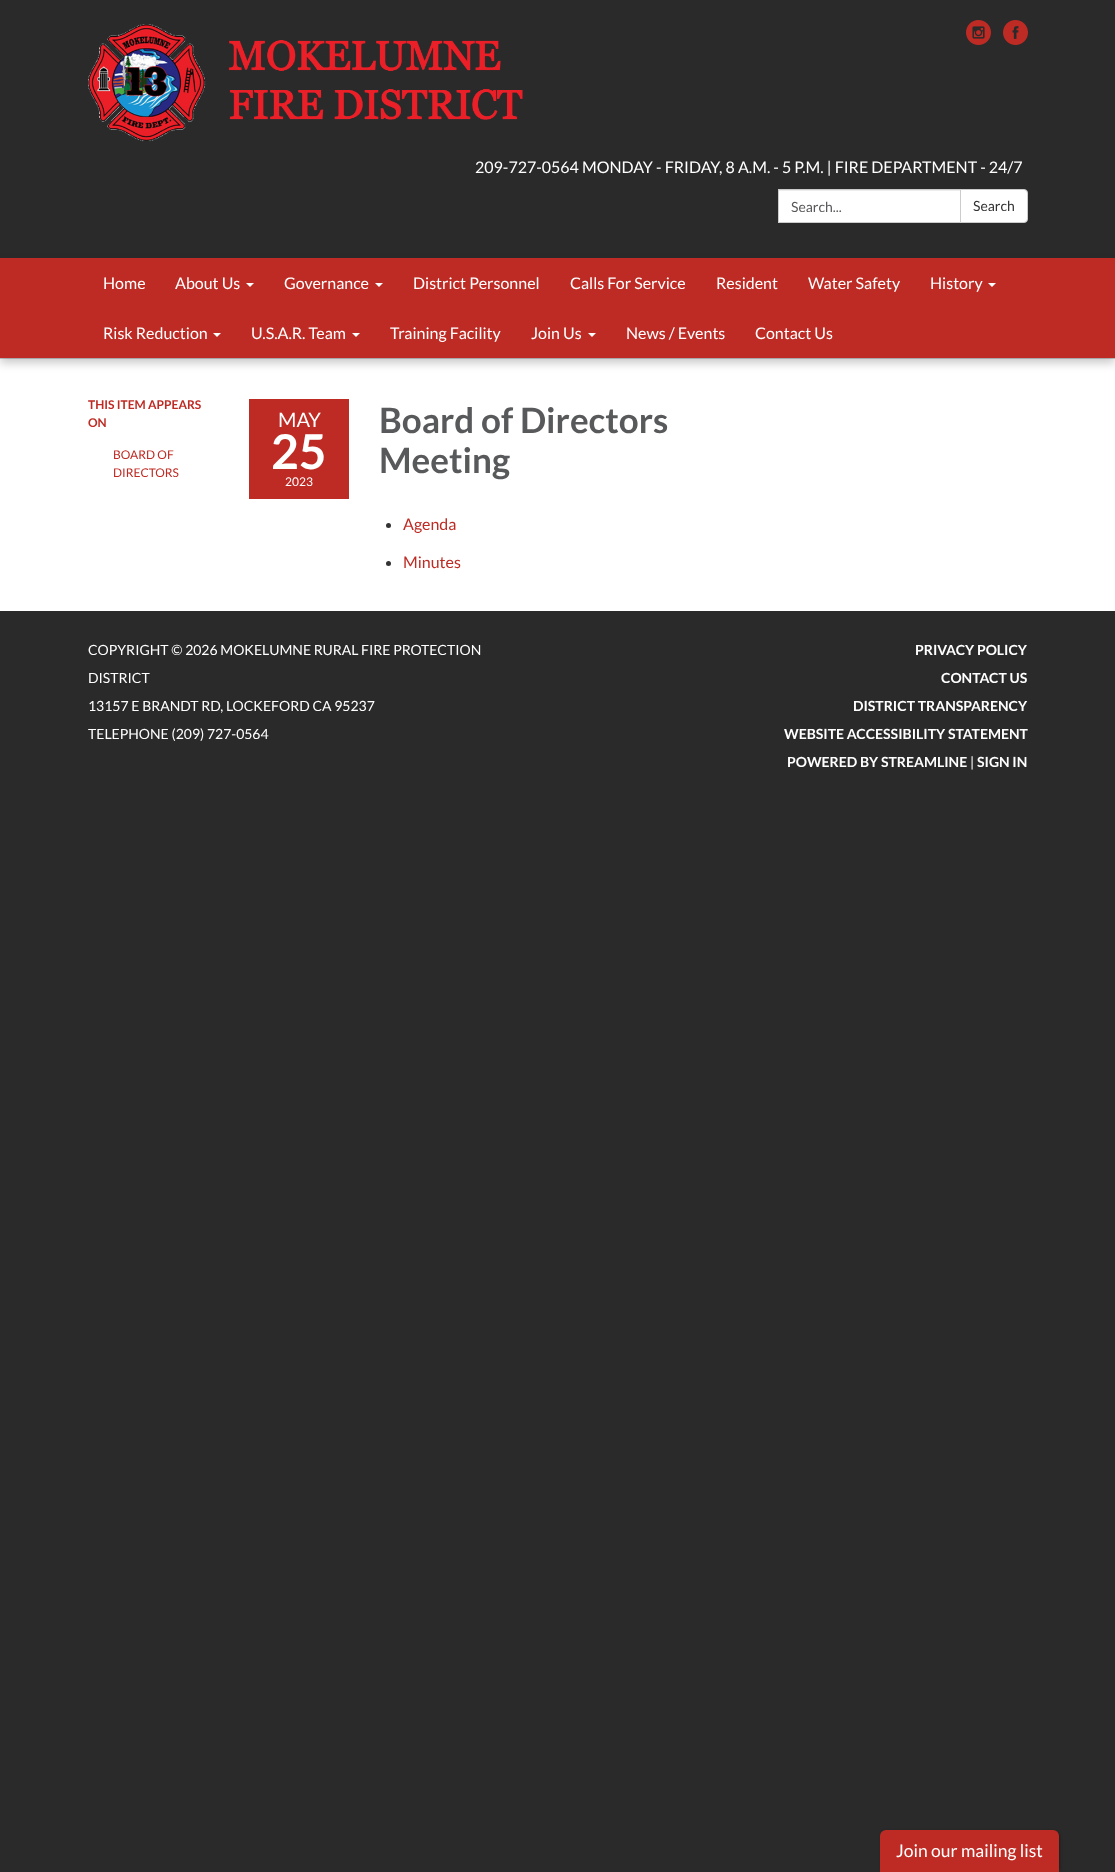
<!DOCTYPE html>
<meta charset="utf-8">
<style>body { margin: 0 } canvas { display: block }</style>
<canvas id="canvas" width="1115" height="1872"></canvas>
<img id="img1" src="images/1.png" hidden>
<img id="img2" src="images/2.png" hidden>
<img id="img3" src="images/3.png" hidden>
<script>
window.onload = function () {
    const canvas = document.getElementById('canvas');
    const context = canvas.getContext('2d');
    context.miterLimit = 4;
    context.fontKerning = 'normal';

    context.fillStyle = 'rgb(43, 42, 42)';
    context.fillRect(0, 0, 1115, 1872);
    context.drawImage(document.getElementById('img1'), 88, 24, 435, 118);
    context.drawImage(document.getElementById('img2'), 966, 20, 25, 25);
    context.drawImage(document.getElementById('img3'), 1003, 20, 25, 25);
    context.fillStyle = 'rgb(255, 255, 255)';
    context.fillRect(779, 191, 181, 31);
    context.fillStyle = 'rgb(236, 236, 236)';
    context.fillRect(779, 190, 181, 1);
    context.strokeStyle = 'rgb(204, 204, 204)';
    context.strokeRect(778.5, 189.5, 182, 33);
    context.fillStyle = 'rgb(255, 255, 255)';
    context.beginPath();
    context.roundRect(960.5, 189.5, 67, 33, [0, 3.5, 3.5, 0]);
    context.fill();
    context.stroke();
    context.fillRect(0, 359, 1115, 252);
    context.fillStyle = 'rgb(204, 204, 204)';
    context.fillRect(0, 358, 1115, 1);
    context.fillStyle = 'rgba(0, 0, 0, 0.21)';
    context.filter = 'blur(5px)';
    context.beginPath();
    context.rect(0, 263, 1115, 100);
    context.fill();
    context.filter = 'none';
    context.fillStyle = 'rgb(190, 43, 36)';
    context.fillRect(0, 258, 1115, 100);
    context.fillStyle = 'rgb(255, 255, 255)';
    context.beginPath();
    context.moveTo(246, 283);
    context.lineTo(254, 283);
    context.lineTo(250, 287);
    context.closePath();
    context.fill();
    context.beginPath();
    context.moveTo(375, 283);
    context.lineTo(383, 283);
    context.lineTo(379, 287);
    context.closePath();
    context.fill();
    context.beginPath();
    context.moveTo(988, 283);
    context.lineTo(996, 283);
    context.lineTo(992, 287);
    context.closePath();
    context.fill();
    context.beginPath();
    context.moveTo(213, 333);
    context.lineTo(221, 333);
    context.lineTo(217, 337);
    context.closePath();
    context.fill();
    context.beginPath();
    context.moveTo(352, 333);
    context.lineTo(360, 333);
    context.lineTo(356, 337);
    context.closePath();
    context.fill();
    context.beginPath();
    context.moveTo(588, 333);
    context.lineTo(596, 333);
    context.lineTo(592, 337);
    context.closePath();
    context.fill();
    context.fillStyle = 'rgb(190, 43, 36)';
    context.fillRect(249, 399, 100, 100);
    context.fillStyle = 'rgb(51, 51, 51)';
    context.beginPath();
    context.arc(388.5, 525.5, 2.5, 0, 2 * Math.PI);
    context.fill();
    context.beginPath();
    context.arc(388.5, 563.5, 2.5, 0, 2 * Math.PI);
    context.fill();
    context.fillStyle = 'rgba(0, 0, 0, 0.3)';
    context.filter = 'blur(1.5px)';
    context.beginPath();
    context.roundRect(881, 1831, 179, 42, 6);
    context.fill();
    context.filter = 'none';
    context.fillStyle = 'rgb(190, 43, 36)';
    context.beginPath();
    context.roundRect(880, 1830, 179, 42, [6, 6, 0, 0]);
    context.fill();
    context.font = '16px Lato';
    context.fillStyle = 'rgb(255, 255, 255)';
    context.fillText('209-727-0564 MONDAY - FRIDAY, 8 A.M. - 5 P.M. | FIRE DEPARTMENT - 24/7', 475, 173);
    context.font = '14px Lato';
    context.fillStyle = 'rgb(88, 89, 91)';
    context.fillText('Search...', 791, 212);
    context.fillStyle = 'rgb(51, 51, 51)';
    context.fillText('Search', 973, 211);
    context.font = '16px Lato';
    context.fillStyle = 'rgb(255, 255, 255)';
    context.fillText('Home', 103, 289);
    context.fillText('About Us', 175, 289);
    context.fillText('Governance', 284, 289);
    context.fillText('District Personnel', 413, 289);
    context.fillText('Calls For Service', 570, 289);
    context.fillText('Resident', 716, 289);
    context.fillText('Water Safety', 808, 289);
    context.fillText('History', 930, 289);
    context.fillText('Risk Reduction', 103, 339);
    context.fillText('U.S.A.R. Team', 251, 339);
    context.fillText('Training Facility', 390, 339);
    context.fillText('Join Us', 531, 339);
    context.fillText('News / Events', 626, 339);
    context.fillText('Contact Us', 755, 339);
    context.font = 'bold 12px Lato';
    context.fillStyle = 'rgb(190, 43, 36)';
    context.fillText('THIS ITEM APPEARS', 88, 409);
    context.fillText('ON', 88, 427);
    context.font = '12px Lato';
    context.fillText('BOARD OF', 113, 459);
    context.fillText('DIRECTORS', 113, 477);
    context.font = '20px Lato';
    context.fillStyle = 'rgb(255, 255, 255)';
    context.fillText('MAY', 278, 427);
    context.font = 'bold 48px Lato';
    context.fillText('25', 271, 469);
    context.font = '12px Lato';
    context.fillText('2023', 285, 486);
    context.font = 'bold 35px Lato';
    context.fillStyle = 'rgb(88, 89, 91)';
    context.fillText('Board of Directors', 379, 433);
    context.fillText('Meeting', 379, 473);
    context.font = '16px Lato';
    context.fillStyle = 'rgb(190, 43, 36)';
    context.fillText('Agenda', 403, 530);
    context.fillText('Minutes', 403, 568);
    context.font = '14px Lato';
    context.fillStyle = 'rgb(255, 255, 255)';
    context.fillText('COPYRIGHT © 2026 MOKELUMNE RURAL FIRE PROTECTION', 88, 655);
    context.fillText('DISTRICT', 88, 683);
    context.fillText('13157 E BRANDT RD, LOCKEFORD CA 95237', 88, 711);
    context.fillText('TELEPHONE (209) 727-0564', 88, 739);
    context.font = 'bold 14px Lato';
    context.fillText('PRIVACY POLICY', 915, 655);
    context.fillText('CONTACT US', 941, 683);
    context.fillText('DISTRICT TRANSPARENCY', 853, 711);
    context.fillText('WEBSITE ACCESSIBILITY STATEMENT', 784, 739);
    context.fillText('POWERED BY STREAMLINE', 787, 767);
    context.font = '14px Lato';
    context.fillText('|', 970, 767);
    context.font = 'bold 14px Lato';
    context.fillText('SIGN IN', 977, 767);
    context.font = '17.5px Lato';
    context.fillText('Join our mailing list', 896, 1857);
};
</script>
